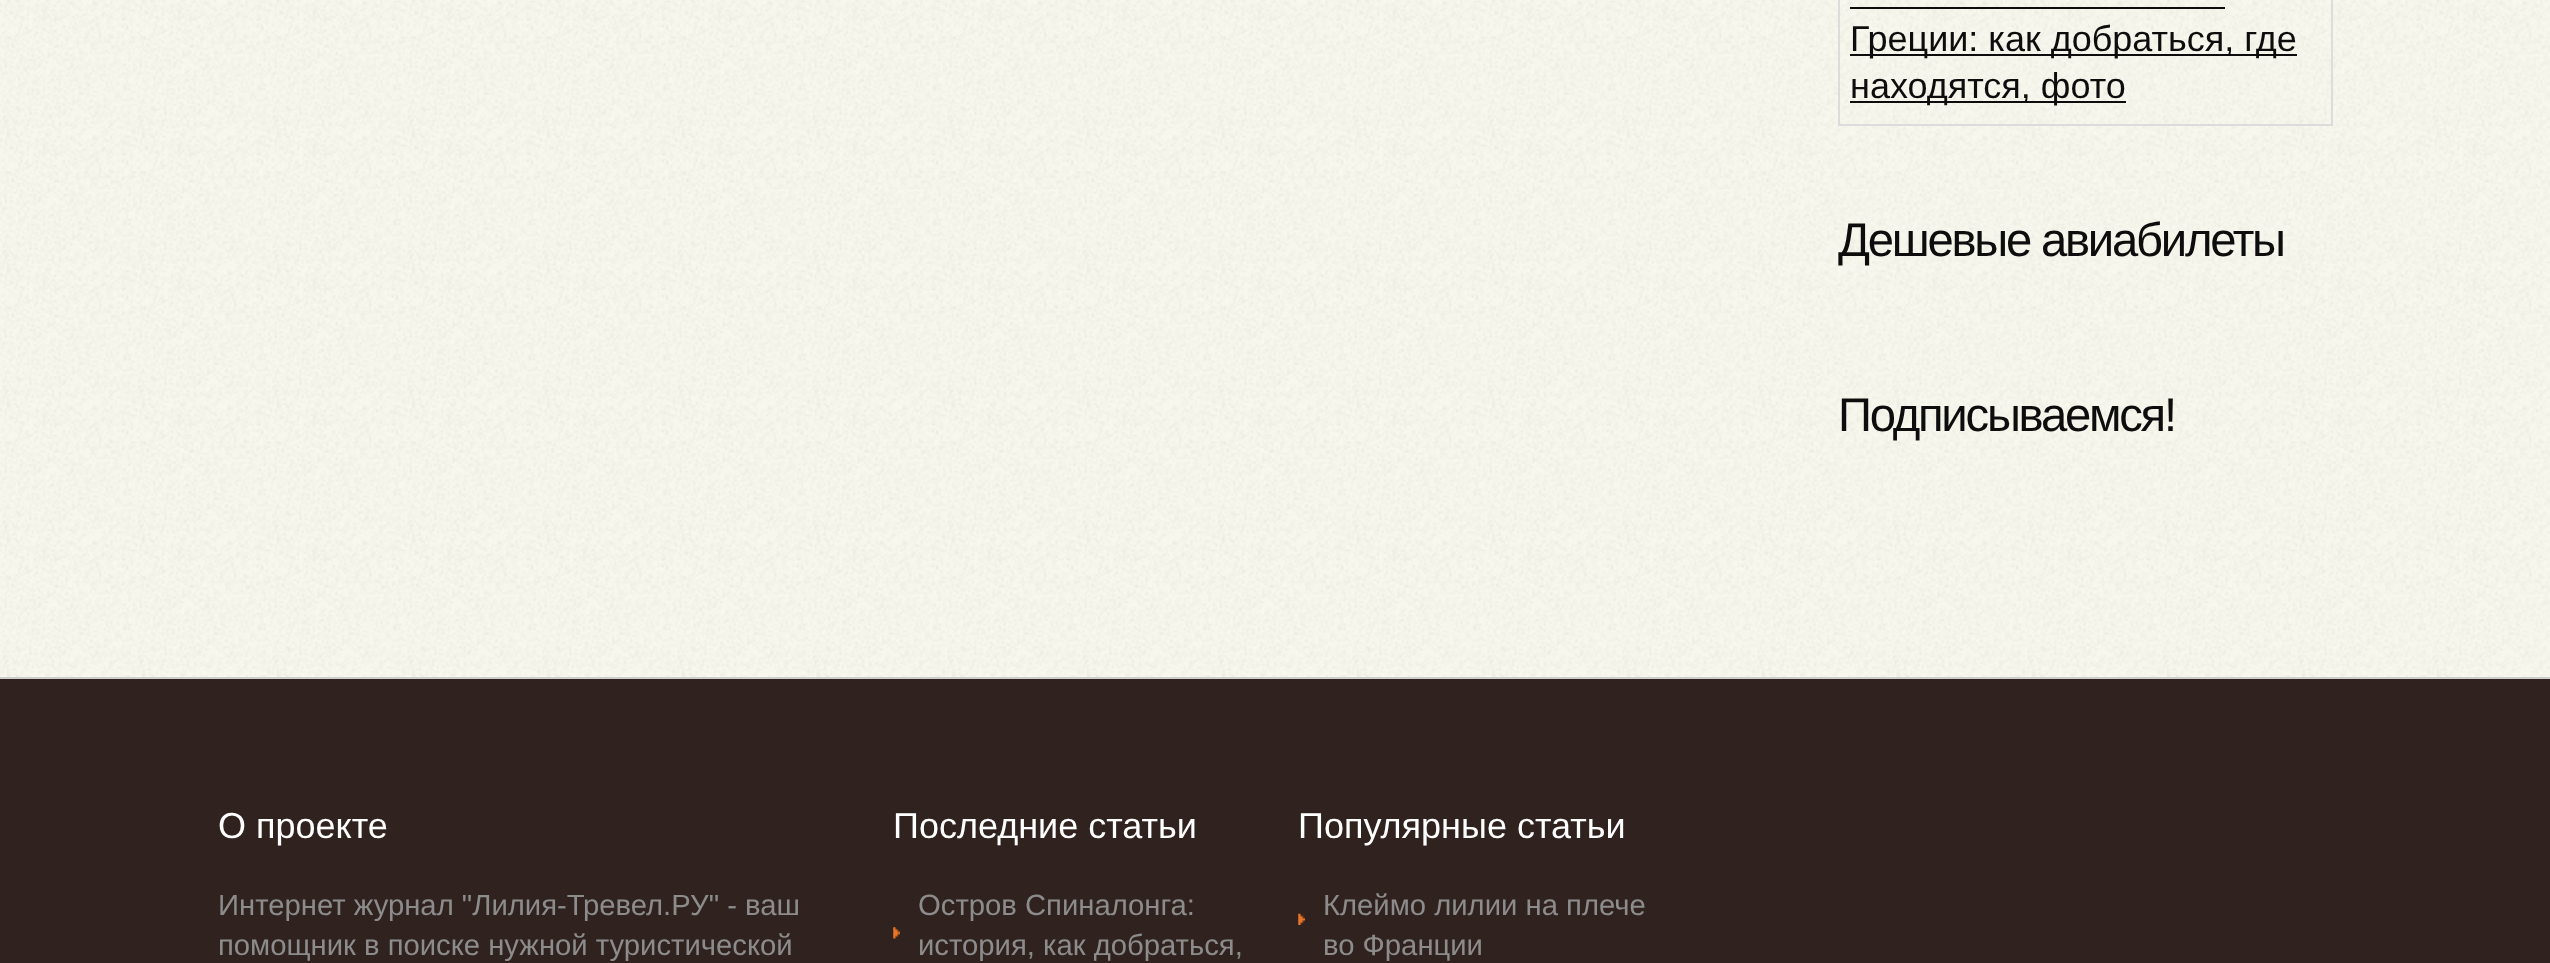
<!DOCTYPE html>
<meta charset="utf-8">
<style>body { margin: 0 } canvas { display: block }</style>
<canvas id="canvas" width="2550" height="963"></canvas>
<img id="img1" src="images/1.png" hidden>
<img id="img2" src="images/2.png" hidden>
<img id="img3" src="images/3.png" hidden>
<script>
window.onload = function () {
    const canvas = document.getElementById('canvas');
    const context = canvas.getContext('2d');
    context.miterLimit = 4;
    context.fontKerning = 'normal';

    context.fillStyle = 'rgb(48, 35, 31)';
    context.fillRect(0, 0, 2550, 963);
    context.drawImage(document.getElementById('img1'), 0, 0, 2550, 677);
    context.strokeStyle = 'rgb(220, 220, 220)';
    context.lineWidth = 2;
    context.strokeRect(1839, -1, 493, 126);
    context.fillStyle = 'rgb(13, 13, 13)';
    context.fillRect(1850, 7, 375, 2);
    context.fillRect(1850, 54, 447, 2);
    context.fillRect(1850, 101, 276, 2);
    context.fillStyle = 'rgb(204, 204, 204)';
    context.fillRect(0, 677, 2550, 2);
    context.drawImage(document.getElementById('img2'), 893, 927, 7, 12);
    context.drawImage(document.getElementById('img3'), 1298, 913, 7, 12);
    context.font = '36px Liberation Sans';
    context.fillStyle = 'rgb(13, 13, 13)';
    context.fillText('Греции: как добраться, где', 1850, 51);
    context.fillText('находятся, фото', 1850, 98);
    context.letterSpacing = '-2.25px';
    context.font = '47.25px Liberation Sans';
    context.fillText('Дешевые авиабилеты', 1838, 256);
    context.fillText('Подписываемся!', 1838, 431);
    context.letterSpacing = '0px';
    context.font = '36px Liberation Sans';
    context.fillStyle = 'rgb(255, 255, 255)';
    context.fillText('О проекте', 218, 838);
    context.font = '29.25px Liberation Sans';
    context.fillStyle = 'rgb(141, 140, 140)';
    context.fillText('Интернет журнал "Лилия-Тревел.РУ" - ваш', 218, 915);
    context.fillText('помощник в поиске нужной туристической', 218, 955);
    context.font = '36px Liberation Sans';
    context.fillStyle = 'rgb(255, 255, 255)';
    context.fillText('Последние статьи', 893, 838);
    context.font = '29.25px Liberation Sans';
    context.fillStyle = 'rgb(141, 140, 140)';
    context.fillText('Остров Спиналонга:', 918, 915);
    context.fillText('история, как добраться,', 918, 955);
    context.font = '36px Liberation Sans';
    context.fillStyle = 'rgb(255, 255, 255)';
    context.fillText('Популярные статьи', 1298, 838);
    context.font = '29.25px Liberation Sans';
    context.fillStyle = 'rgb(141, 140, 140)';
    context.fillText('Клеймо лилии на плече', 1323, 915);
    context.fillText('во Франции', 1323, 955);
};
</script>
